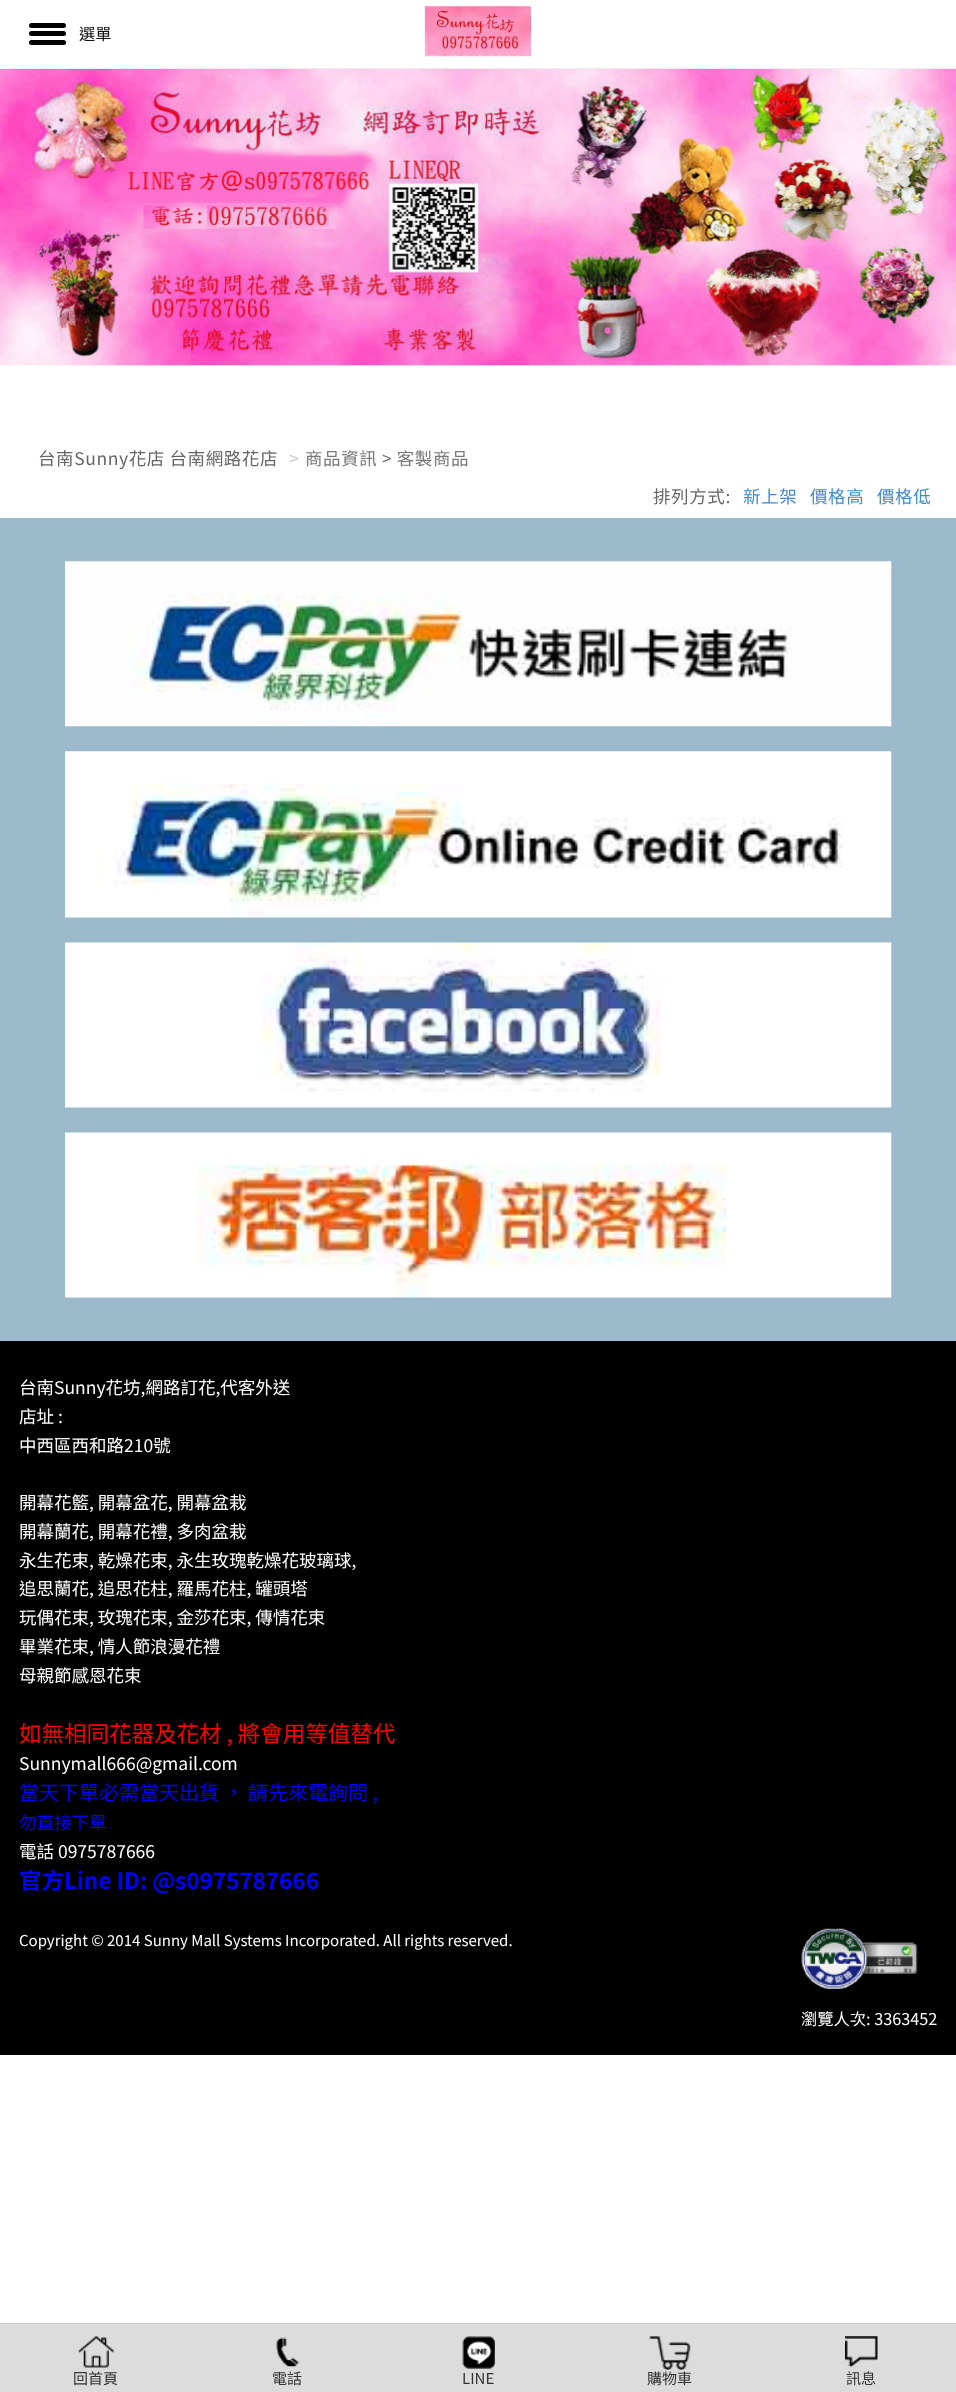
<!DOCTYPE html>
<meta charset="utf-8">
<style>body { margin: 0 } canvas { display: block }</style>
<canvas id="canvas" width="956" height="2392"></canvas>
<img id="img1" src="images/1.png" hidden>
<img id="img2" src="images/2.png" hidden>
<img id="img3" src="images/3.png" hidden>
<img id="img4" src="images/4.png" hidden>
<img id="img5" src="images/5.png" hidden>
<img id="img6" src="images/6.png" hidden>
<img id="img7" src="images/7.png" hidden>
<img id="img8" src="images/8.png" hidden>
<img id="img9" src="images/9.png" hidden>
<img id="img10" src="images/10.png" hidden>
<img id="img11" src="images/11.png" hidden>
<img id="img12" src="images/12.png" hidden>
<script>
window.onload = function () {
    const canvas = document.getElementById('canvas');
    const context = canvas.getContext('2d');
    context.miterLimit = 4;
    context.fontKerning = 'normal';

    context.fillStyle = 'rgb(255, 255, 255)';
    context.fillRect(0, 0, 956, 2392);
    context.fillStyle = 'rgb(238, 238, 238)';
    context.fillRect(0, 68, 956, 1);
    context.drawImage(document.getElementById('img1'), 422, 6, 112, 51);
    context.fillStyle = 'rgb(0, 0, 0)';
    context.beginPath();
    context.roundRect(29, 31, 37, 5, 2.5);
    context.fill();
    context.beginPath();
    context.roundRect(29, 23, 37, 5, 2.5);
    context.fill();
    context.beginPath();
    context.roundRect(29, 40, 37, 5, 2.5);
    context.fill();
    context.drawImage(document.getElementById('img2'), 0, 69, 956, 297);
    context.fillStyle = 'rgb(156, 186, 204)';
    context.fillRect(0, 518, 956, 823);
    context.drawImage(document.getElementById('img3'), 65, 561, 827, 166);
    context.drawImage(document.getElementById('img4'), 65, 751, 827, 167);
    context.drawImage(document.getElementById('img5'), 65, 942, 827, 166);
    context.drawImage(document.getElementById('img6'), 65, 1132, 827, 166);
    context.fillStyle = 'rgb(0, 0, 0)';
    context.fillRect(0, 1341, 956, 714);
    context.drawImage(document.getElementById('img7'), 801, 1928, 117, 61);
    context.fillStyle = 'rgb(220, 220, 220)';
    context.fillRect(0, 2324, 956, 68);
    context.fillStyle = 'rgb(199, 202, 205)';
    context.fillRect(0, 2323, 956, 1);
    context.drawImage(document.getElementById('img8'), 78, 2336, 36, 32);
    context.drawImage(document.getElementById('img9'), 275, 2337, 25, 30);
    context.drawImage(document.getElementById('img10'), 462, 2336, 33, 33);
    context.drawImage(document.getElementById('img11'), 649, 2336, 42, 34);
    context.drawImage(document.getElementById('img12'), 845, 2336, 33, 31);
    context.font = '16.25px Noto Sans TC';
    context.fillStyle = 'rgb(17, 17, 17)';
    context.fillText('選單', 79, 40);
    context.letterSpacing = '0.6px';
    context.font = '17.5px Noto Sans TC';
    context.fillStyle = 'rgb(102, 102, 102)';
    context.fillText('台南Sunny花店 台南網路花店', 38, 465);
    context.fillStyle = 'rgb(204, 204, 204)';
    context.fillText('>', 289, 465);
    context.fillStyle = 'rgb(119, 119, 119)';
    context.fillText('商品資訊 > 客製商品', 305, 465);
    context.fillStyle = 'rgb(102, 102, 102)';
    context.fillText('排列方式:', 653, 503);
    context.fillStyle = 'rgb(66, 139, 202)';
    context.fillText('新上架', 743, 503);
    context.fillText('價格高', 810, 503);
    context.fillText('價格低', 877, 503);
    context.letterSpacing = '0px';
    context.fillStyle = 'rgb(255, 255, 255)';
    context.fillText('台南Sunny花坊,網路訂花,代客外送', 19, 1394);
    context.fillText('店址 :', 19, 1423);
    context.fillText('中西區西和路210號', 19, 1452);
    context.fillText('開幕花籃, 開幕盆花, 開幕盆栽', 19, 1509);
    context.fillText('開幕蘭花, 開幕花禮, 多肉盆栽', 19, 1538);
    context.fillText('永生花束, 乾燥花束, 永生玫瑰乾燥花玻璃球,', 19, 1567);
    context.fillText('追思蘭花, 追思花柱, 羅馬花柱, 罐頭塔', 19, 1595);
    context.fillText('玩偶花束, 玫瑰花束, 金莎花束, 傳情花束', 19, 1624);
    context.fillText('畢業花束, 情人節浪漫花禮', 19, 1653);
    context.fillText('母親節感恩花束', 19, 1682);
    context.font = '22.5px Noto Sans TC';
    context.fillStyle = 'rgb(255, 0, 0)';
    context.fillText('如無相同花器及花材 , 將會用等值替代', 19, 1742);
    context.font = '17.5px Noto Sans TC';
    context.fillStyle = 'rgb(255, 255, 255)';
    context.fillText('Sunnymall666@gmail.com', 19, 1770);
    context.font = '20px Noto Sans TC';
    context.fillStyle = 'rgb(0, 0, 255)';
    context.fillText('當天下單必需當天出貨 ， 請先來電詢問 ,', 19, 1800);
    context.font = '17.5px Noto Sans TC';
    context.fillText('勿直接下單', 19, 1829);
    context.fillStyle = 'rgb(255, 255, 255)';
    context.fillText('電話 0975787666', 19, 1858);
    context.font = 'bold 22.5px Noto Sans TC';
    context.fillStyle = 'rgb(0, 0, 255)';
    context.fillText('官方Line ID: @s0975787666', 19, 1889);
    context.font = '15px Noto Sans TC';
    context.fillStyle = 'rgb(255, 255, 255)';
    context.fillText('Copyright © 2014 Sunny Mall Systems Incorporated. All rights reserved.', 19, 1946);
    context.font = '16.25px Noto Sans TC';
    context.fillText('瀏覽人次: 3363452', 801, 2025);
    context.font = '15px Noto Sans TC';
    context.fillStyle = 'rgb(51, 51, 51)';
    context.fillText('回首頁', 73, 2384);
    context.fillText('電話', 272, 2384);
    context.fillText('LINE', 462, 2384);
    context.fillText('購物車', 647, 2384);
    context.fillText('訊息', 846, 2384);
};
</script>
